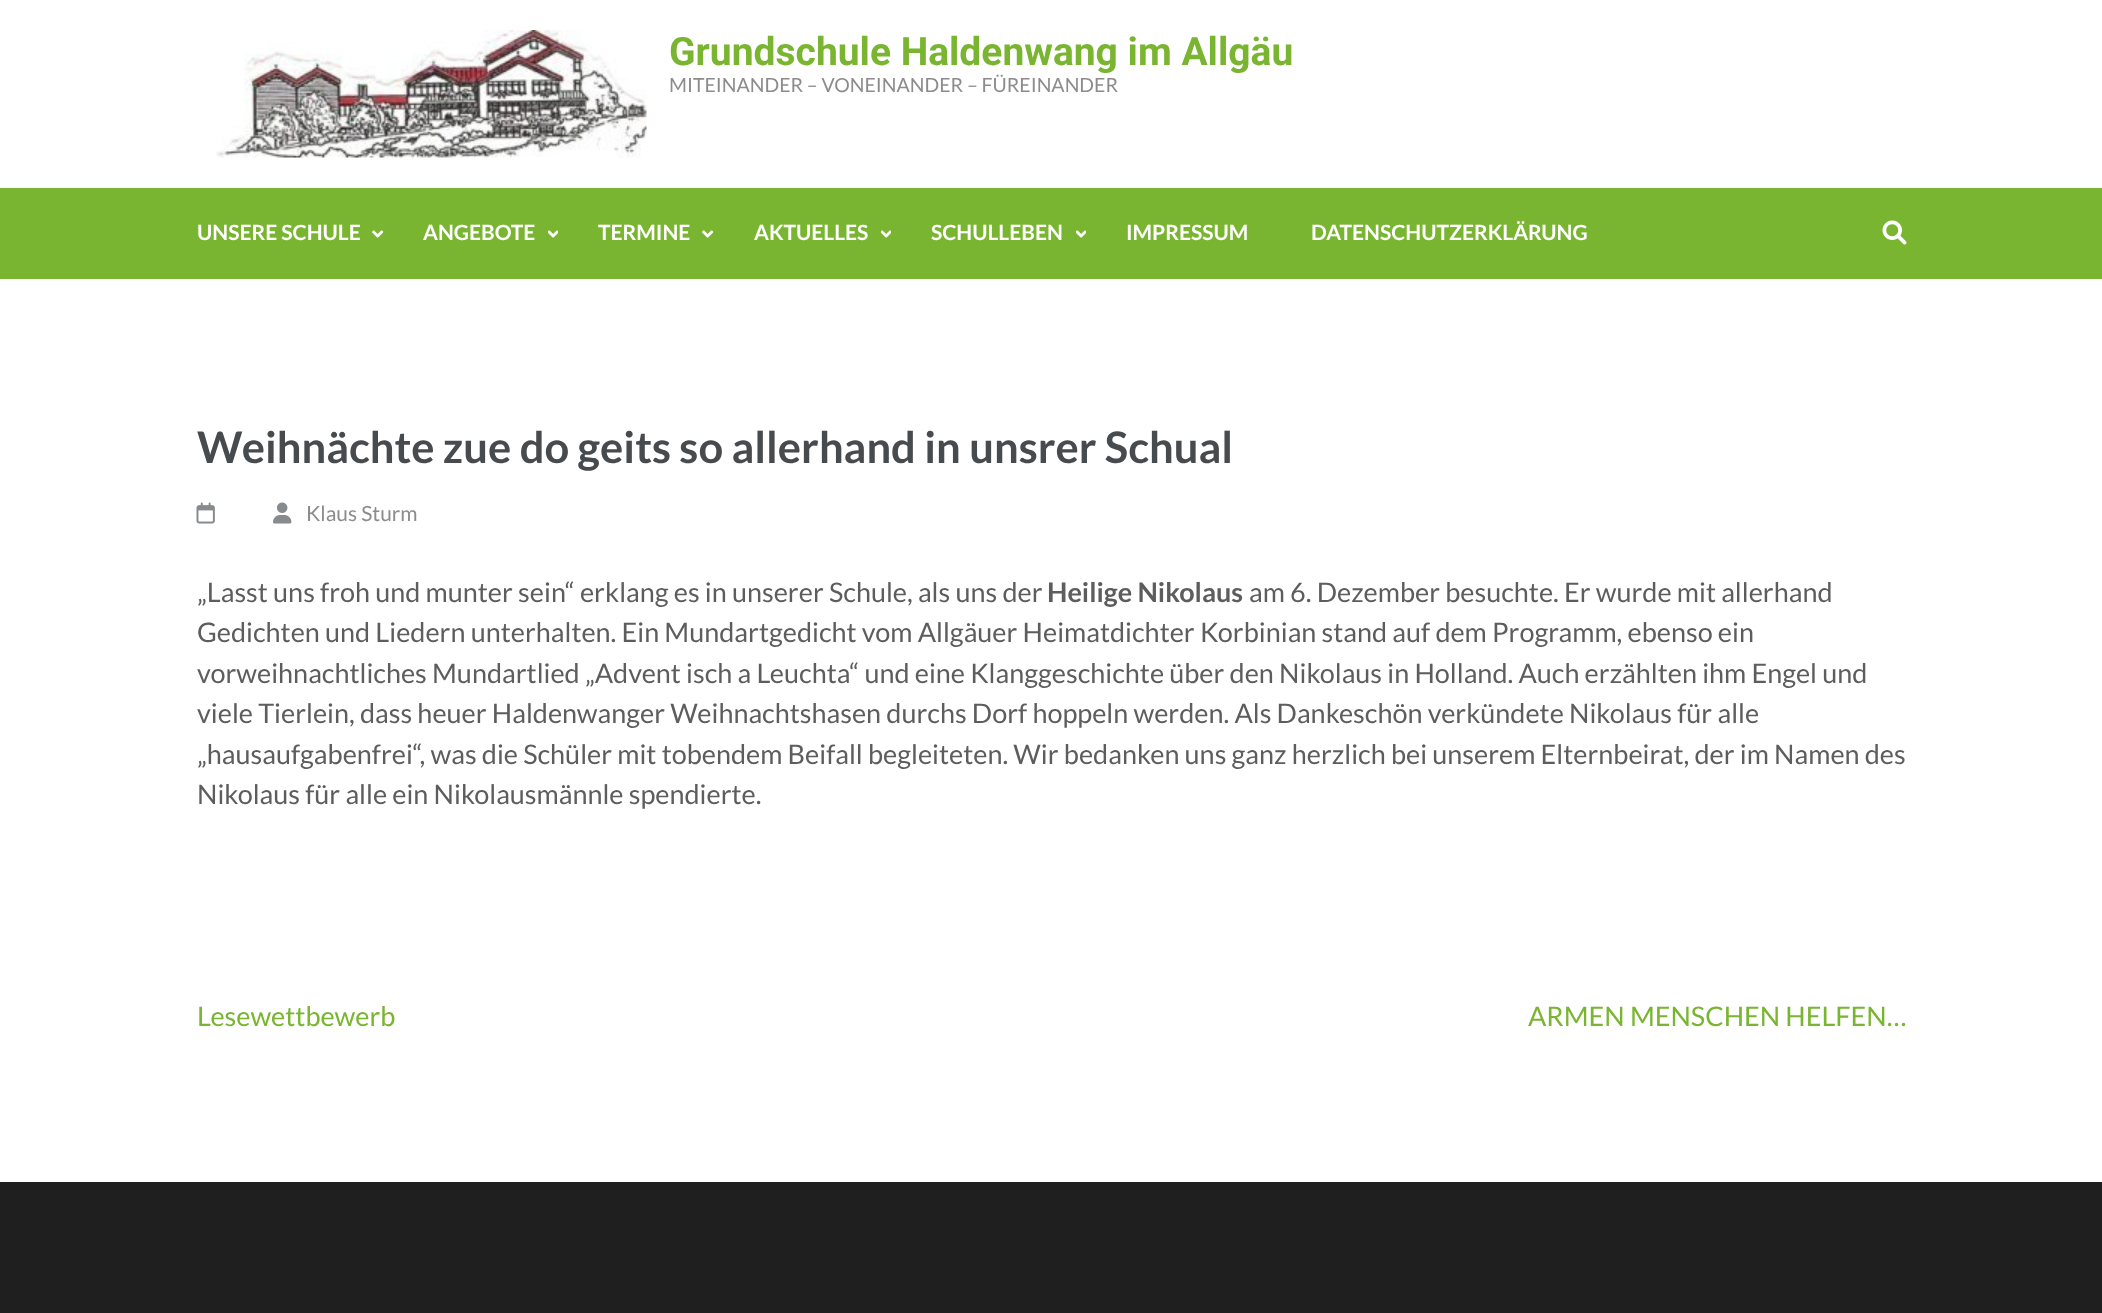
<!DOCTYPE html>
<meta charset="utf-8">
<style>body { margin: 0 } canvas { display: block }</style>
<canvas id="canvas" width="2102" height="1313"></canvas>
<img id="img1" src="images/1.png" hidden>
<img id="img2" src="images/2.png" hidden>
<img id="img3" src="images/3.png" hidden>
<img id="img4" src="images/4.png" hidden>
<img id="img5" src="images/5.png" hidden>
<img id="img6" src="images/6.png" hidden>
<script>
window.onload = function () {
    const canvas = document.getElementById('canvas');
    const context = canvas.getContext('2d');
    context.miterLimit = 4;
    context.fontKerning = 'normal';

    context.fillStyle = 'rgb(255, 255, 255)';
    context.fillRect(0, 0, 2102, 1313);
    context.drawImage(document.getElementById('img1'), 216, 30, 431, 128);
    context.fillStyle = 'rgb(121, 181, 48)';
    context.fillRect(0, 188, 2102, 91);
    context.drawImage(document.getElementById('img2'), 372, 230, 12, 8);
    context.drawImage(document.getElementById('img3'), 548, 230, 10, 8);
    context.drawImage(document.getElementById('img2'), 702, 230, 12, 8);
    context.drawImage(document.getElementById('img3'), 881, 230, 10, 8);
    context.drawImage(document.getElementById('img3'), 1076, 230, 10, 8);
    context.drawImage(document.getElementById('img4'), 1882, 220, 25, 25);
    context.drawImage(document.getElementById('img5'), 196, 502, 19, 22);
    context.drawImage(document.getElementById('img6'), 273, 502, 19, 22);
    context.fillStyle = 'rgb(31, 31, 31)';
    context.fillRect(0, 1182, 2102, 131);
    context.font = 'bold 39px Roboto';
    context.fillStyle = 'rgb(121, 181, 48)';
    context.fillText('Grundschule Haldenwang im Allgäu', 669, 65);
    context.font = '19.5px Lato';
    context.fillStyle = 'rgb(140, 140, 140)';
    context.fillText('MITEINANDER – VONEINANDER – FÜREINANDER', 669, 92);
    context.font = 'bold 21px Lato';
    context.fillStyle = 'rgb(255, 255, 255)';
    context.fillText('UNSERE SCHULE', 197, 240);
    context.fillText('ANGEBOTE', 423, 240);
    context.fillText('TERMINE', 598, 240);
    context.fillText('AKTUELLES', 754, 240);
    context.fillText('SCHULLEBEN', 931, 240);
    context.fillText('IMPRESSUM', 1126, 240);
    context.fillText('DATENSCHUTZERKLÄRUNG', 1311, 240);
    context.font = 'bold 43.5px Lato';
    context.fillStyle = 'rgb(71, 75, 78)';
    context.fillText('Weihnächte zue do geits so allerhand in unsrer Schual', 197, 463);
    context.font = '21px Lato';
    context.fillStyle = 'rgb(140, 140, 140)';
    context.fillText('Klaus Sturm', 306, 521);
    context.font = '27px Lato';
    context.fillStyle = 'rgb(93, 93, 93)';
    context.fillText('„Lasst uns froh und munter sein“ erklang es in unserer Schule, als uns der', 197, 602);
    context.font = 'bold 27px Lato';
    context.fillText('Heilige Nikolaus', 1047, 602);
    context.font = '27px Lato';
    context.fillText('am 6. Dezember besuchte. Er wurde mit allerhand', 1249, 602);
    context.fillText('Gedichten und Liedern unterhalten. Ein Mundartgedicht vom Allgäuer Heimatdichter Korbinian stand auf dem Programm, ebenso ein', 197, 642);
    context.fillText('vorweihnachtliches Mundartlied „Advent isch a Leuchta“ und eine Klanggeschichte über den Nikolaus in Holland. Auch erzählten ihm Engel und', 197, 683);
    context.fillText('viele Tierlein, dass heuer Haldenwanger Weihnachtshasen durchs Dorf hoppeln werden. Als Dankeschön verkündete Nikolaus für alle', 197, 723);
    context.fillText('„hausaufgabenfrei“, was die Schüler mit tobendem Beifall begleiteten. Wir bedanken uns ganz herzlich bei unserem Elternbeirat, der im Namen des', 197, 764);
    context.fillText('Nikolaus für alle ein Nikolausmännle spendierte.', 197, 804);
    context.fillStyle = 'rgb(121, 181, 48)';
    context.fillText('Lesewettbewerb', 197, 1026);
    context.fillText('ARMEN MENSCHEN HELFEN…', 1528, 1026);
};
</script>
